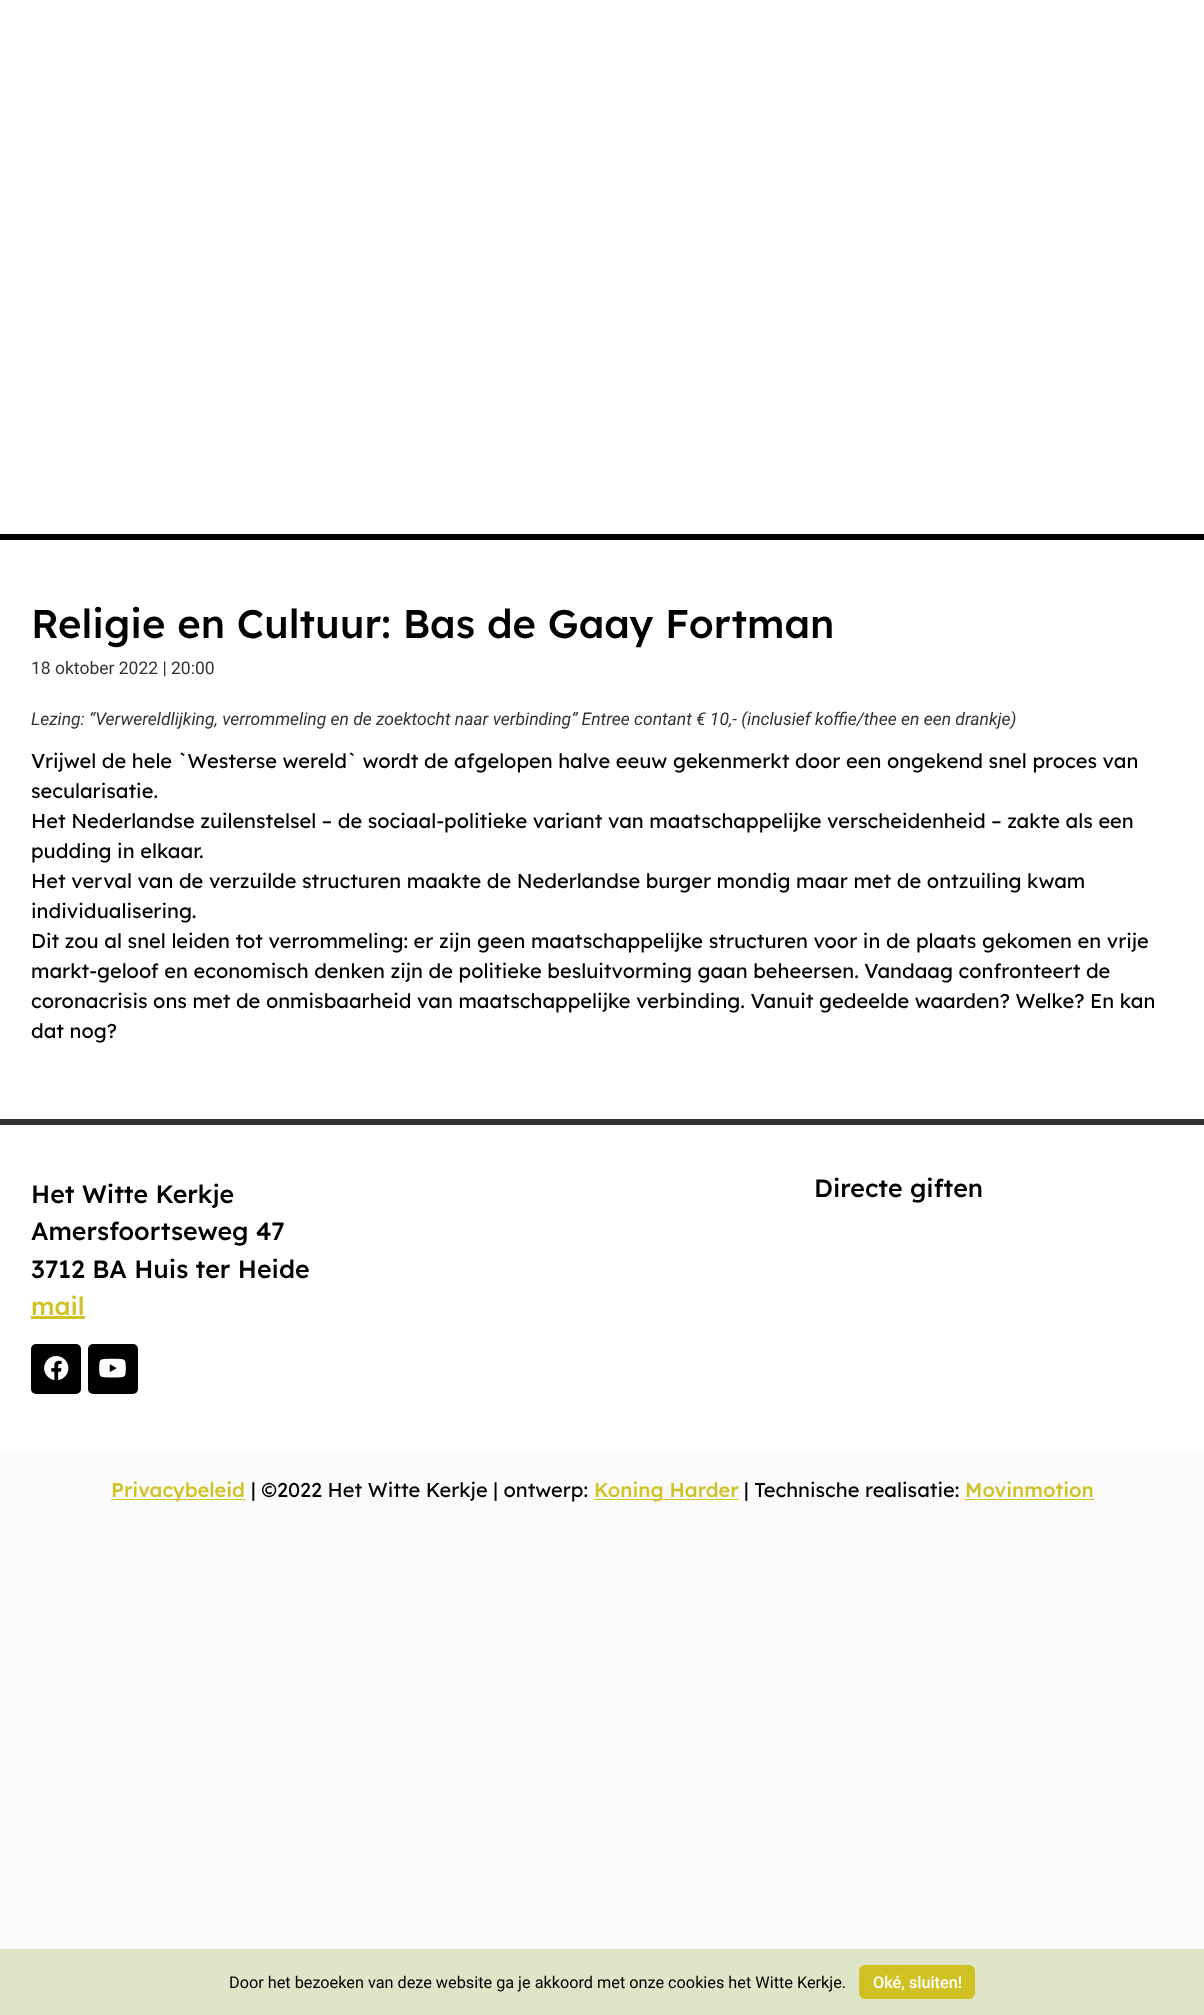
<!DOCTYPE html>
<meta charset="utf-8">
<style>body { margin: 0 } canvas { display: block }</style>
<canvas id="canvas" width="1204" height="2015"></canvas>
<img id="img1" src="images/1.png" hidden>
<img id="img2" src="images/2.png" hidden>
<script>
window.onload = function () {
    const canvas = document.getElementById('canvas');
    const context = canvas.getContext('2d');
    context.miterLimit = 4;
    context.fontKerning = 'normal';

    context.fillStyle = 'rgb(251, 251, 251)';
    context.fillRect(0, 0, 1204, 2015);
    context.fillStyle = 'rgb(255, 255, 255)';
    context.fillRect(0, 0, 1204, 1450);
    context.fillStyle = 'rgb(0, 0, 0)';
    context.fillRect(0, 534, 1204, 6);
    context.fillStyle = 'rgb(51, 51, 51)';
    context.fillRect(0, 1119, 1204, 6);
    context.fillStyle = 'rgb(208, 194, 36)';
    context.fillRect(31, 1316, 54, 3);
    context.fillStyle = 'rgb(0, 0, 0)';
    context.beginPath();
    context.roundRect(31, 1344, 50, 50, 5);
    context.fill();
    context.drawImage(document.getElementById('img1'), 44, 1356, 25, 24);
    context.beginPath();
    context.roundRect(88, 1344, 50, 50, 5);
    context.fill();
    context.drawImage(document.getElementById('img2'), 99, 1358, 27, 20);
    context.fillStyle = 'rgb(208, 194, 36)';
    context.fillRect(111, 1499, 134, 1);
    context.fillRect(594, 1499, 145, 1);
    context.fillRect(965, 1499, 129, 1);
    context.fillStyle = 'rgb(223, 230, 200)';
    context.fillRect(0, 1949, 1204, 66);
    context.fillStyle = 'rgb(208, 194, 36)';
    context.beginPath();
    context.roundRect(859.5, 1965.5, 115, 33, 5.5);
    context.fill();
    context.strokeStyle = 'rgb(208, 194, 36)';
    context.stroke();
    context.font = '500 40px Lexend Deca';
    context.fillStyle = 'rgb(0, 0, 0)';
    context.fillText('Religie en Cultuur: Bas de Gaay Fortman', 31, 638);
    context.font = '17.5px Roboto';
    context.fillStyle = 'rgb(51, 51, 51)';
    context.fillText('18 oktober 2022 |', 31, 674);
    context.fillText('20:00', 171, 674);
    context.font = 'italic 17.5px Roboto';
    context.fillText('Lezing: “Verwereldlijking, verrommeling en de zoektocht naar verbinding” Entree contant € 10,- (inclusief koffie/thee en een drankje)', 31, 725);
    context.font = '20px Lexend Deca';
    context.fillStyle = 'rgb(0, 0, 0)';
    context.fillText('Vrijwel de hele `Westerse wereld` wordt de afgelopen halve eeuw gekenmerkt door een ongekend snel proces van', 31, 768);
    context.fillText('secularisatie.', 31, 798);
    context.fillText('Het Nederlandse zuilenstelsel – de sociaal-politieke variant van maatschappelijke verscheidenheid – zakte als een', 31, 828);
    context.fillText('pudding in elkaar.', 31, 858);
    context.fillText('Het verval van de verzuilde structuren maakte de Nederlandse burger mondig maar met de ontzuiling kwam', 31, 888);
    context.fillText('individualisering.', 31, 918);
    context.fillText('Dit zou al snel leiden tot verrommeling: er zijn geen maatschappelijke structuren voor in de plaats gekomen en vrije', 31, 948);
    context.fillText('markt-geloof en economisch denken zijn de politieke besluitvorming gaan beheersen. Vandaag confronteert de', 31, 978);
    context.fillText('coronacrisis ons met de onmisbaarheid van maatschappelijke verbinding. Vanuit gedeelde waarden? Welke? En kan', 31, 1008);
    context.fillText('dat nog?', 31, 1038);
    context.font = '500 25px Lexend Deca';
    context.fillText('Het Witte Kerkje', 31, 1203);
    context.fillText('Amersfoortseweg 47', 31, 1240);
    context.fillText('3712 BA Huis ter Heide', 31, 1278);
    context.fillStyle = 'rgb(208, 194, 36)';
    context.fillText('mail', 31, 1315);
    context.fillStyle = 'rgb(0, 0, 0)';
    context.fillText('Directe giften', 814, 1197);
    context.font = '500 20px Lexend Deca';
    context.fillStyle = 'rgb(208, 194, 36)';
    context.fillText('Privacybeleid', 111, 1497);
    context.font = '20px Lexend Deca';
    context.fillStyle = 'rgb(0, 0, 0)';
    context.fillText('| ©2022 Het Witte Kerkje | ontwerp:', 251, 1497);
    context.font = '500 20px Lexend Deca';
    context.fillStyle = 'rgb(208, 194, 36)';
    context.fillText('Koning Harder', 594, 1497);
    context.font = '20px Lexend Deca';
    context.fillStyle = 'rgb(0, 0, 0)';
    context.fillText('| Technische realisatie:', 744, 1497);
    context.font = '500 20px Lexend Deca';
    context.fillStyle = 'rgb(208, 194, 36)';
    context.fillText('Movinmotion', 965, 1497);
    context.font = '16.25px Roboto';
    context.fillStyle = 'rgb(0, 0, 0)';
    context.fillText('Door het bezoeken van deze website ga je akkoord met onze cookies het Witte Kerkje.', 229, 1988);
    context.font = '500 16.25px Roboto';
    context.fillStyle = 'rgb(255, 255, 255)';
    context.fillText('Oké, sluiten!', 873, 1988);
};
</script>
